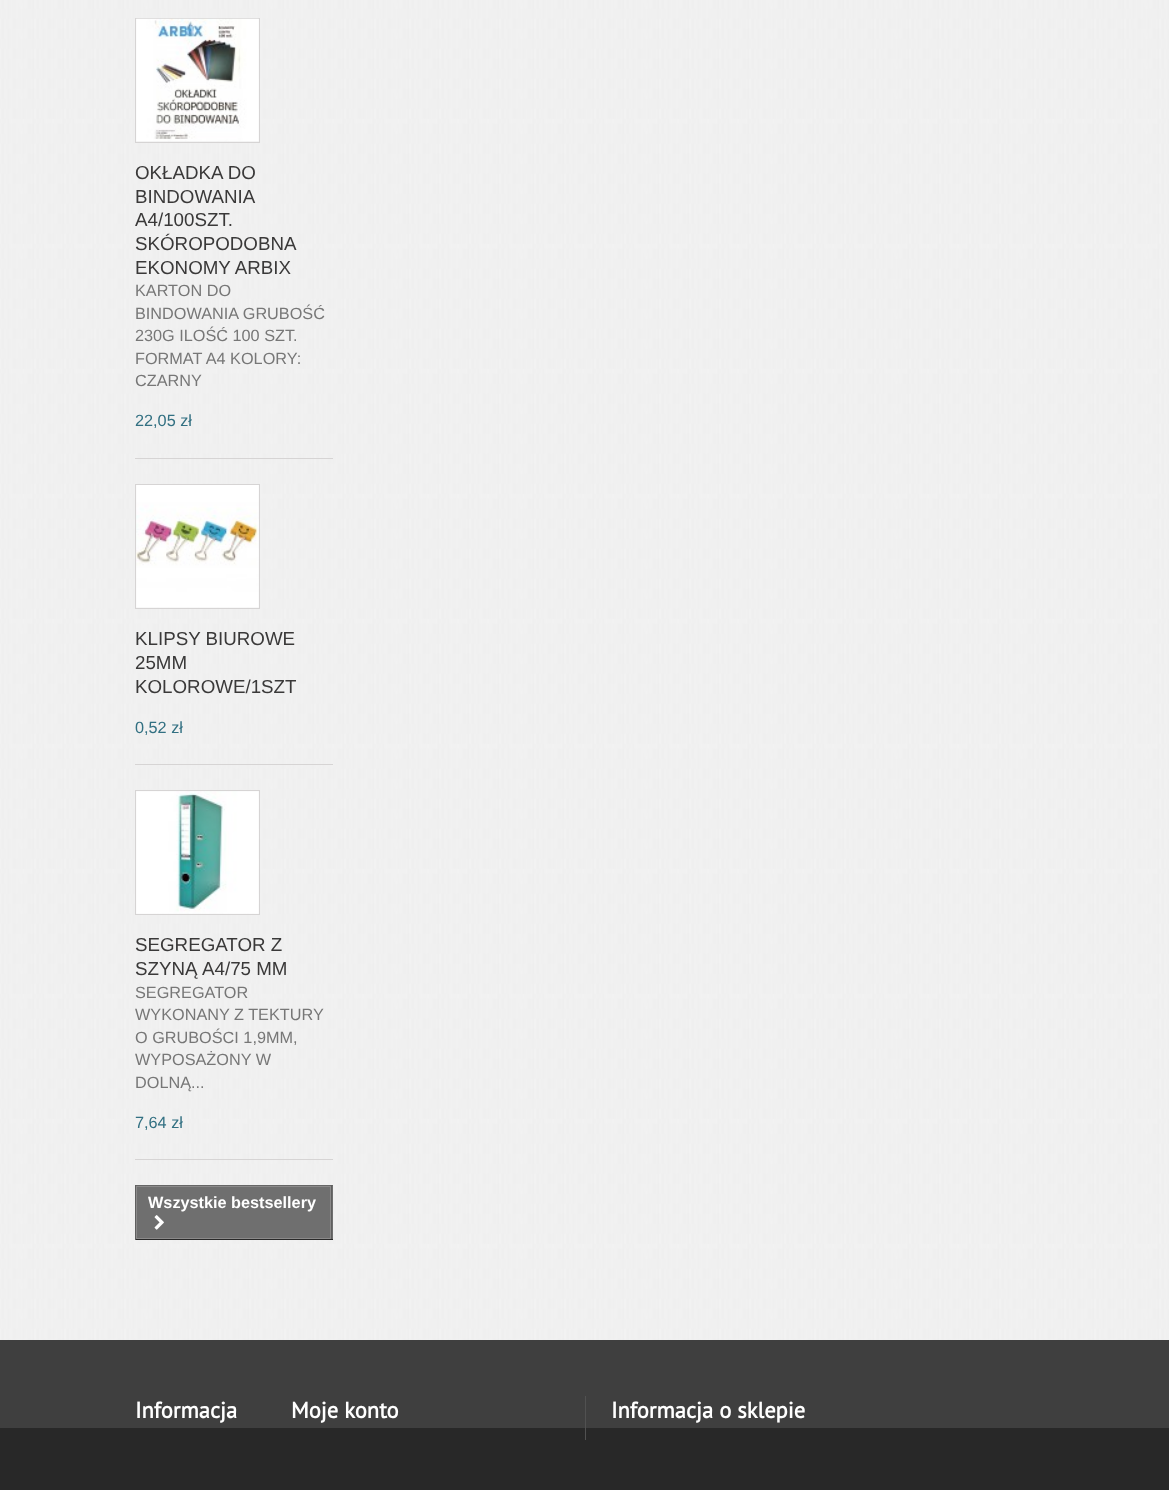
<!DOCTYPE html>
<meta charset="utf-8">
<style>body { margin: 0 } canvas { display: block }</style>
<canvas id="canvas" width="1169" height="1490"></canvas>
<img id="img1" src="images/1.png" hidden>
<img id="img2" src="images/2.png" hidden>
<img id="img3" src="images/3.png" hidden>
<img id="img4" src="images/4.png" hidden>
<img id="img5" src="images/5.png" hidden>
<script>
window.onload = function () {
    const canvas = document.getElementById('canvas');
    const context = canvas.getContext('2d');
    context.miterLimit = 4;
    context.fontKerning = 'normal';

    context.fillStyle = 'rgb(40, 40, 40)';
    context.fillRect(0, 0, 1169, 1490);
    context.drawImage(document.getElementById('img1'), 0, 0, 1169, 1340);
    context.fillStyle = 'rgb(214, 212, 212)';
    context.fillRect(135, 458, 198, 1);
    context.strokeStyle = 'rgb(214, 212, 212)';
    context.strokeRect(135.5, 18.5, 124, 124);
    context.drawImage(document.getElementById('img2'), 136, 18, 123, 124);
    context.fillRect(135, 764, 198, 1);
    context.strokeRect(135.5, 484.5, 124, 124);
    context.drawImage(document.getElementById('img3'), 136, 485, 123, 123);
    context.fillRect(135, 1159, 198, 1);
    context.strokeRect(135.5, 790.5, 124, 124);
    context.drawImage(document.getElementById('img4'), 136, 791, 123, 123);
    context.fillStyle = 'rgb(111, 111, 111)';
    context.fillRect(137, 1186, 196, 53);
    context.fillStyle = 'rgb(102, 102, 102)';
    context.fillRect(135, 1185, 198, 1);
    context.fillStyle = 'rgb(95, 95, 95)';
    context.fillRect(331, 1185, 1, 55);
    context.fillStyle = 'rgb(41, 41, 41)';
    context.fillRect(135, 1239, 198, 1);
    context.fillStyle = 'rgb(95, 95, 95)';
    context.fillRect(135, 1185, 1, 55);
    context.strokeStyle = 'rgb(139, 138, 138)';
    context.strokeRect(136.5, 1186.5, 194, 52);
    context.drawImage(document.getElementById('img5'), 154, 1215, 10, 15);
    context.fillStyle = 'rgb(63, 63, 63)';
    context.fillRect(0, 1340, 1169, 88);
    context.fillStyle = 'rgb(81, 81, 81)';
    context.fillRect(585, 1396, 1, 44);
    context.font = '18.75px Liberation Sans';
    context.fillStyle = 'rgb(58, 57, 57)';
    context.fillText('OKŁADKA DO', 135, 179);
    context.fillText('BINDOWANIA', 135, 203);
    context.fillText('A4/100SZT.', 135, 226);
    context.fillText('SKÓROPODOBNA', 135, 250);
    context.fillText('EKONOMY ARBIX', 135, 274);
    context.font = '16.25px Liberation Sans';
    context.fillStyle = 'rgb(119, 119, 119)';
    context.fillText('KARTON DO', 135, 296);
    context.fillText('BINDOWANIA GRUBOŚĆ', 135, 319);
    context.fillText('230G ILOŚĆ 100 SZT.', 135, 341);
    context.fillText('FORMAT A4 KOLORY:', 135, 364);
    context.fillText('CZARNY', 135, 386);
    context.fillStyle = 'rgb(50, 112, 130)';
    context.fillText('22,05 zł', 135, 426);
    context.font = '18.75px Liberation Sans';
    context.fillStyle = 'rgb(58, 57, 57)';
    context.fillText('KLIPSY BIUROWE', 135, 645);
    context.fillText('25MM', 135, 669);
    context.fillText('KOLOROWE/1SZT', 135, 693);
    context.font = '16.25px Liberation Sans';
    context.fillStyle = 'rgb(50, 112, 130)';
    context.fillText('0,52 zł', 135, 733);
    context.font = '18.75px Liberation Sans';
    context.fillStyle = 'rgb(58, 57, 57)';
    context.fillText('SEGREGATOR Z', 135, 951);
    context.fillText('SZYNĄ', 135, 975);
    context.fillText('A4/75 MM', 202, 975);
    context.font = '16.25px Liberation Sans';
    context.fillStyle = 'rgb(119, 119, 119)';
    context.fillText('SEGREGATOR', 135, 998);
    context.fillText('WYKONANY Z TEKTURY', 135, 1020);
    context.fillText('O GRUBOŚCI 1,9MM,', 135, 1043);
    context.fillText('WYPOSAŻONY W', 135, 1065);
    context.fillText('DOLNĄ...', 135, 1088);
    context.fillStyle = 'rgb(50, 112, 130)';
    context.fillText('7,64 zł', 135, 1128);
    context.font = 'bold 16.25px Liberation Sans';
    context.fillStyle = 'rgb(255, 255, 255)';
    context.fillText('Wszystkie bestsellery', 148, 1208);
    context.font = 'bold 22.5px PT Sans';
    context.fillText('Informacja', 135, 1418);
    context.fillText('Moje konto', 291, 1418);
    context.fillText('Informacja o sklepie', 611, 1418);
};
</script>
